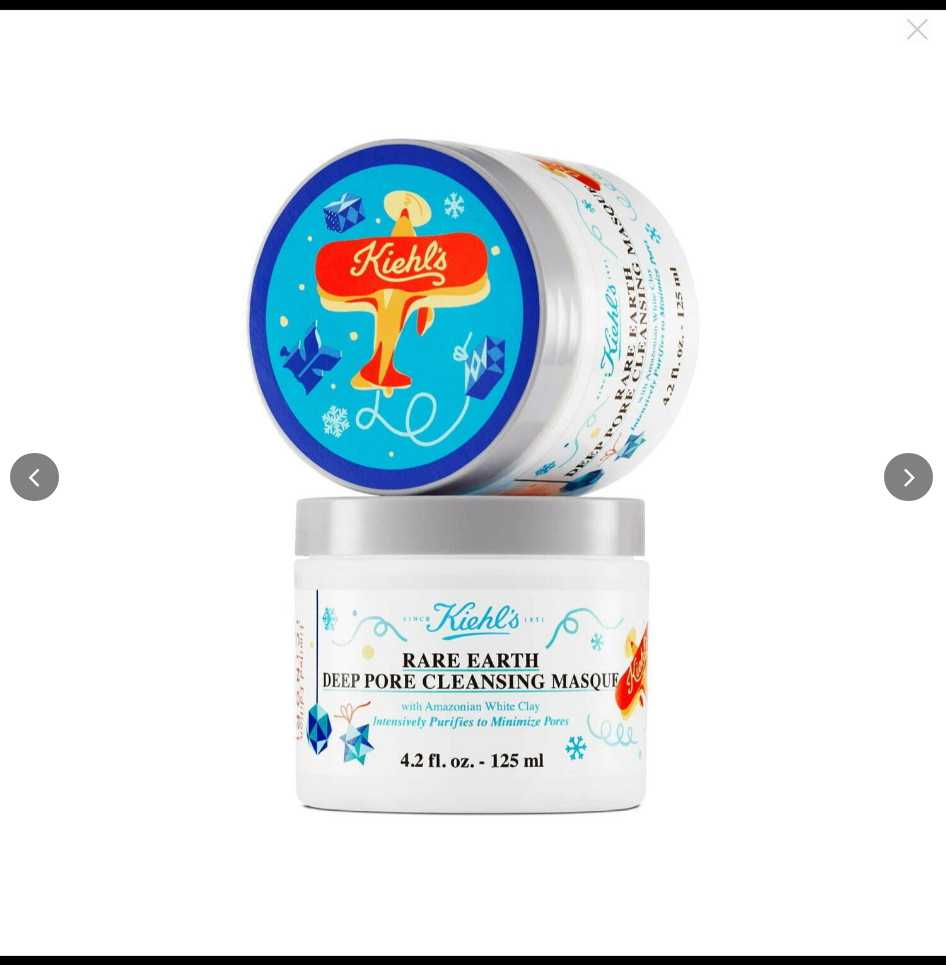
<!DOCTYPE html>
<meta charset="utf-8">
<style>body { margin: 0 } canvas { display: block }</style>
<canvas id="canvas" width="946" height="965"></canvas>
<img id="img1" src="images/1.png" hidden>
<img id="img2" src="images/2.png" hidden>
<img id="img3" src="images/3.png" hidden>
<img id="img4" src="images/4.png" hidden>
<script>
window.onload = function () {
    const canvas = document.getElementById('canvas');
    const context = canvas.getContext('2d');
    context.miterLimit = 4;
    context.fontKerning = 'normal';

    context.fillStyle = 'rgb(0, 0, 0)';
    context.fillRect(0, 0, 946, 965);
    context.drawImage(document.getElementById('img1'), 0, 9, 946, 947);
    context.fillStyle = 'rgb(128, 128, 128)';
    context.beginPath();
    context.roundRect(10, 453, 49, 48, 24);
    context.fill();
    context.drawImage(document.getElementById('img2'), 28, 468, 12, 19);
    context.beginPath();
    context.roundRect(884, 453, 49, 48, 24);
    context.fill();
    context.drawImage(document.getElementById('img3'), 904, 468, 11, 19);
    context.fillStyle = 'rgb(252, 252, 252)';
    context.fillRect(903, 14, 29, 29);
    context.drawImage(document.getElementById('img4'), 907, 19, 21, 21);
};
</script>
